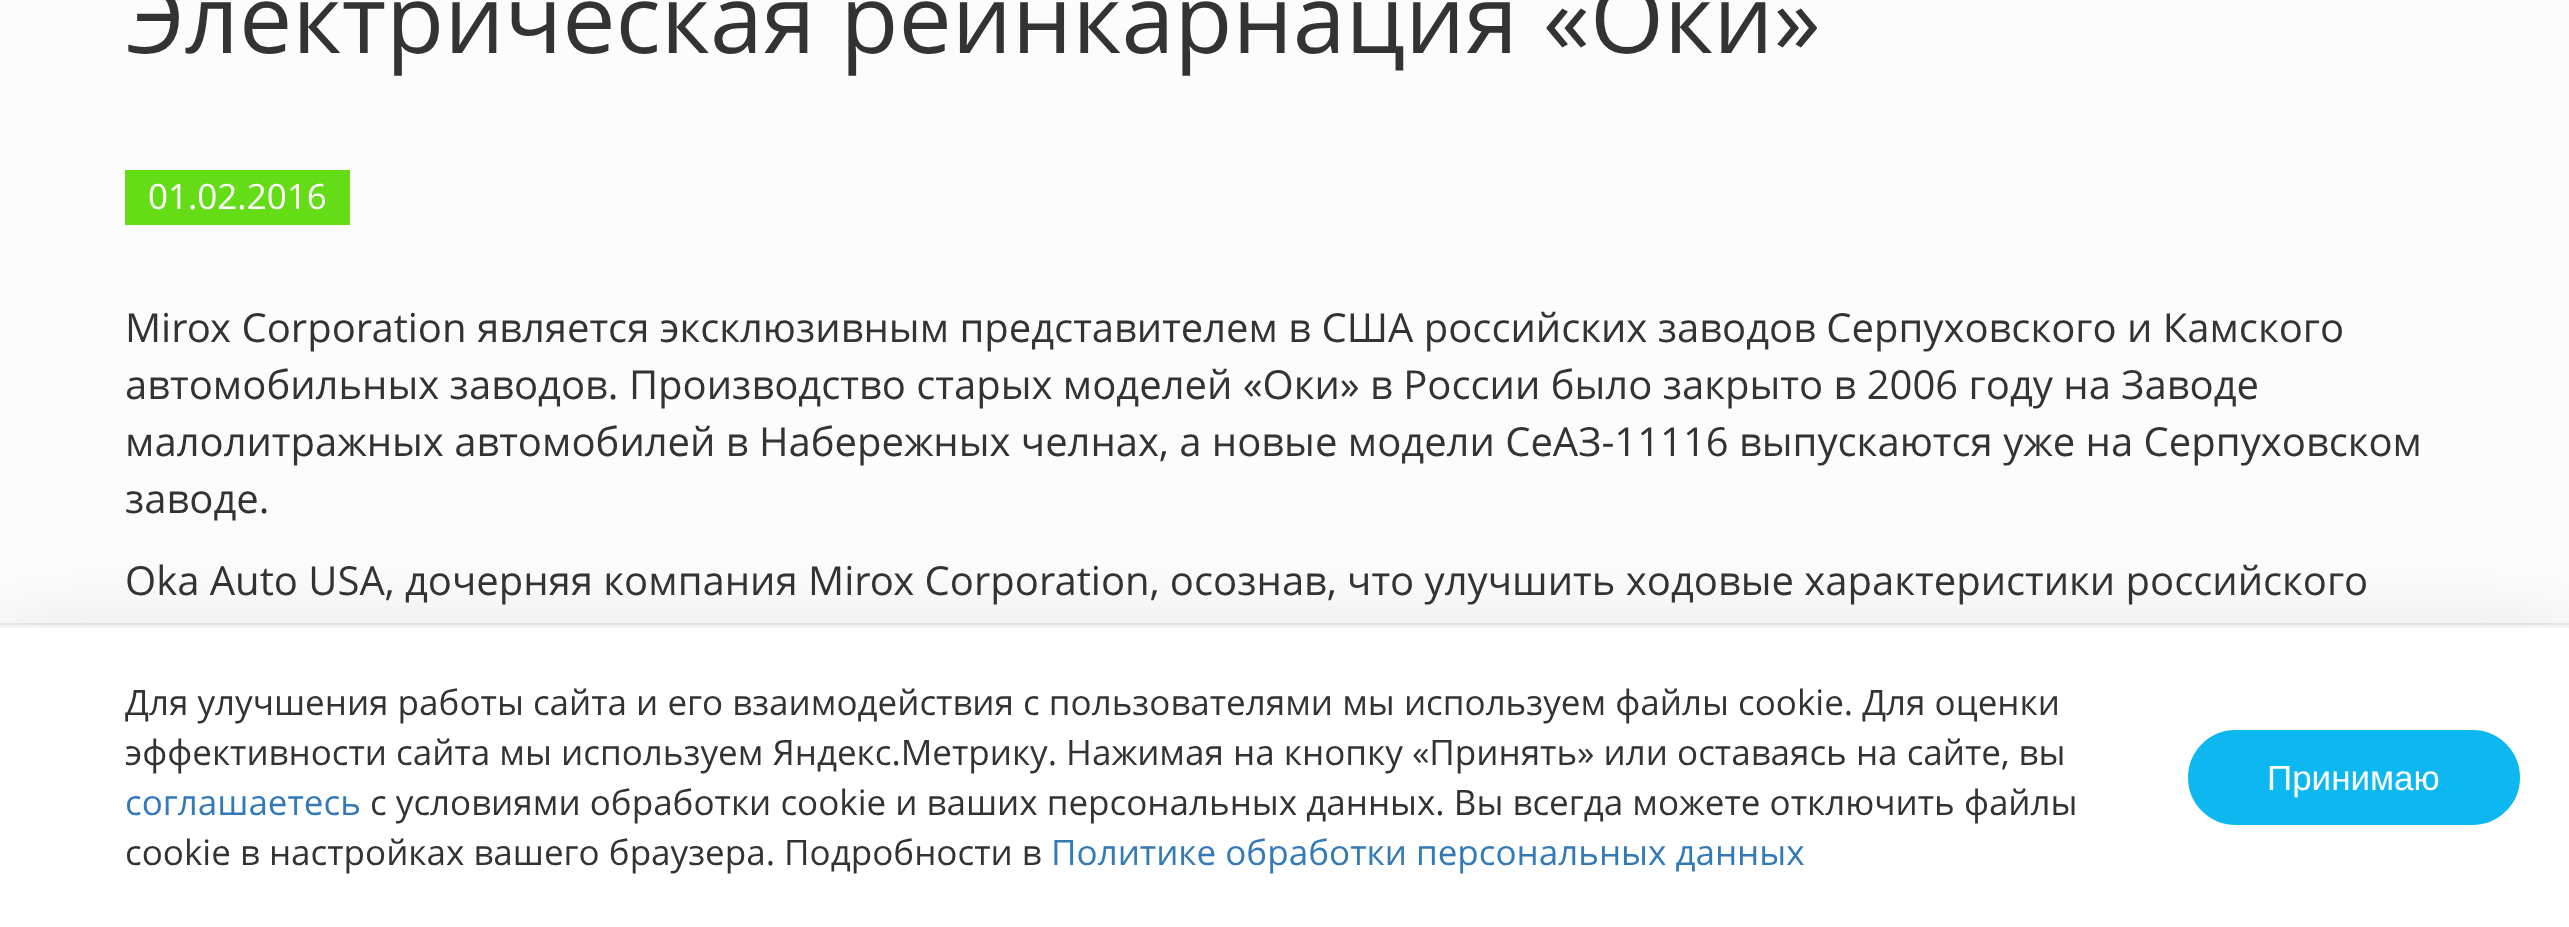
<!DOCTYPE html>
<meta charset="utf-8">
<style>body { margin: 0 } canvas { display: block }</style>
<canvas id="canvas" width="2569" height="927"></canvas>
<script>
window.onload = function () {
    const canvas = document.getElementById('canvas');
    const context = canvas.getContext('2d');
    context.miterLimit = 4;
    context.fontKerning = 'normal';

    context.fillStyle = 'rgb(252, 252, 252)';
    context.fillRect(0, 0, 2569, 927);
    context.fillStyle = 'rgb(100, 221, 23)';
    context.fillRect(125, 170, 225, 55);
    context.strokeStyle = 'rgba(0, 0, 0, 0.06)';
    context.lineWidth = 3;
    context.strokeRect(-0.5, 624.5, 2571, 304);
    context.fillStyle = 'rgba(0, 0, 0, 0.16)';
    context.filter = 'blur(45px)';
    context.beginPath();
    context.rect(0, 650, 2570, 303);
    context.fill();
    context.filter = 'none';
    context.fillStyle = 'rgb(255, 255, 255)';
    context.fillRect(0, 628, 2569, 299);
    context.fillStyle = 'rgb(241, 243, 246)';
    context.fillRect(0, 625, 2569, 3);
    context.fillStyle = 'rgb(13, 184, 241)';
    context.beginPath();
    context.roundRect(2190.5, 732.5, 327, 90, 45);
    context.fill();
    context.strokeStyle = 'rgb(13, 184, 241)';
    context.lineWidth = 5;
    context.stroke();
    context.font = '95px Open Sans';
    context.fillStyle = 'rgb(51, 51, 51)';
    context.fillText('Электрическая реинкарнация «Оки»', 125, 53);
    context.font = '35px Open Sans';
    context.fillStyle = 'rgb(255, 255, 255)';
    context.fillText('01.02.2016', 148, 209);
    context.font = '40px Open Sans';
    context.fillStyle = 'rgb(51, 51, 51)';
    context.fillText('Mirox Corporation является эксклюзивным представителем в США российских заводов Серпуховского и Камского', 125, 342);
    context.fillText('автомобильных заводов. Производство старых моделей «Оки» в России было закрыто в 2006 году на Заводе', 125, 399);
    context.fillText('малолитражных автомобилей в Набережных челнах, а новые модели СеАЗ-11116 выпускаются уже на Серпуховском', 125, 456);
    context.fillText('заводе.', 125, 513);
    context.fillText('Oka Auto USA, дочерняя компания Mirox Corporation, осознав, что улучшить ходовые характеристики российского', 125, 595);
    context.font = '35px Open Sans';
    context.fillText('Для улучшения работы сайта и его взаимодействия с пользователями мы используем файлы cookie. Для оценки', 125, 715);
    context.fillText('эффективности сайта мы используем Яндекс.Метрику. Нажимая на кнопку «Принять» или оставаясь на сайте, вы', 125, 765);
    context.fillStyle = 'rgb(51, 122, 183)';
    context.fillText('соглашаетесь', 125, 815);
    context.fillStyle = 'rgb(51, 51, 51)';
    context.fillText('с условиями обработки cookie и ваших персональных данных. Вы всегда можете отключить файлы', 370, 815);
    context.fillText('cookie в настройках вашего браузера. Подробности в', 125, 865);
    context.fillStyle = 'rgb(51, 122, 183)';
    context.fillText('Политике обработки персональных данных', 1051, 865);
    context.font = '35px Liberation Sans';
    context.fillStyle = 'rgb(255, 255, 255)';
    context.fillText('Принимаю', 2267, 790);
};
</script>
